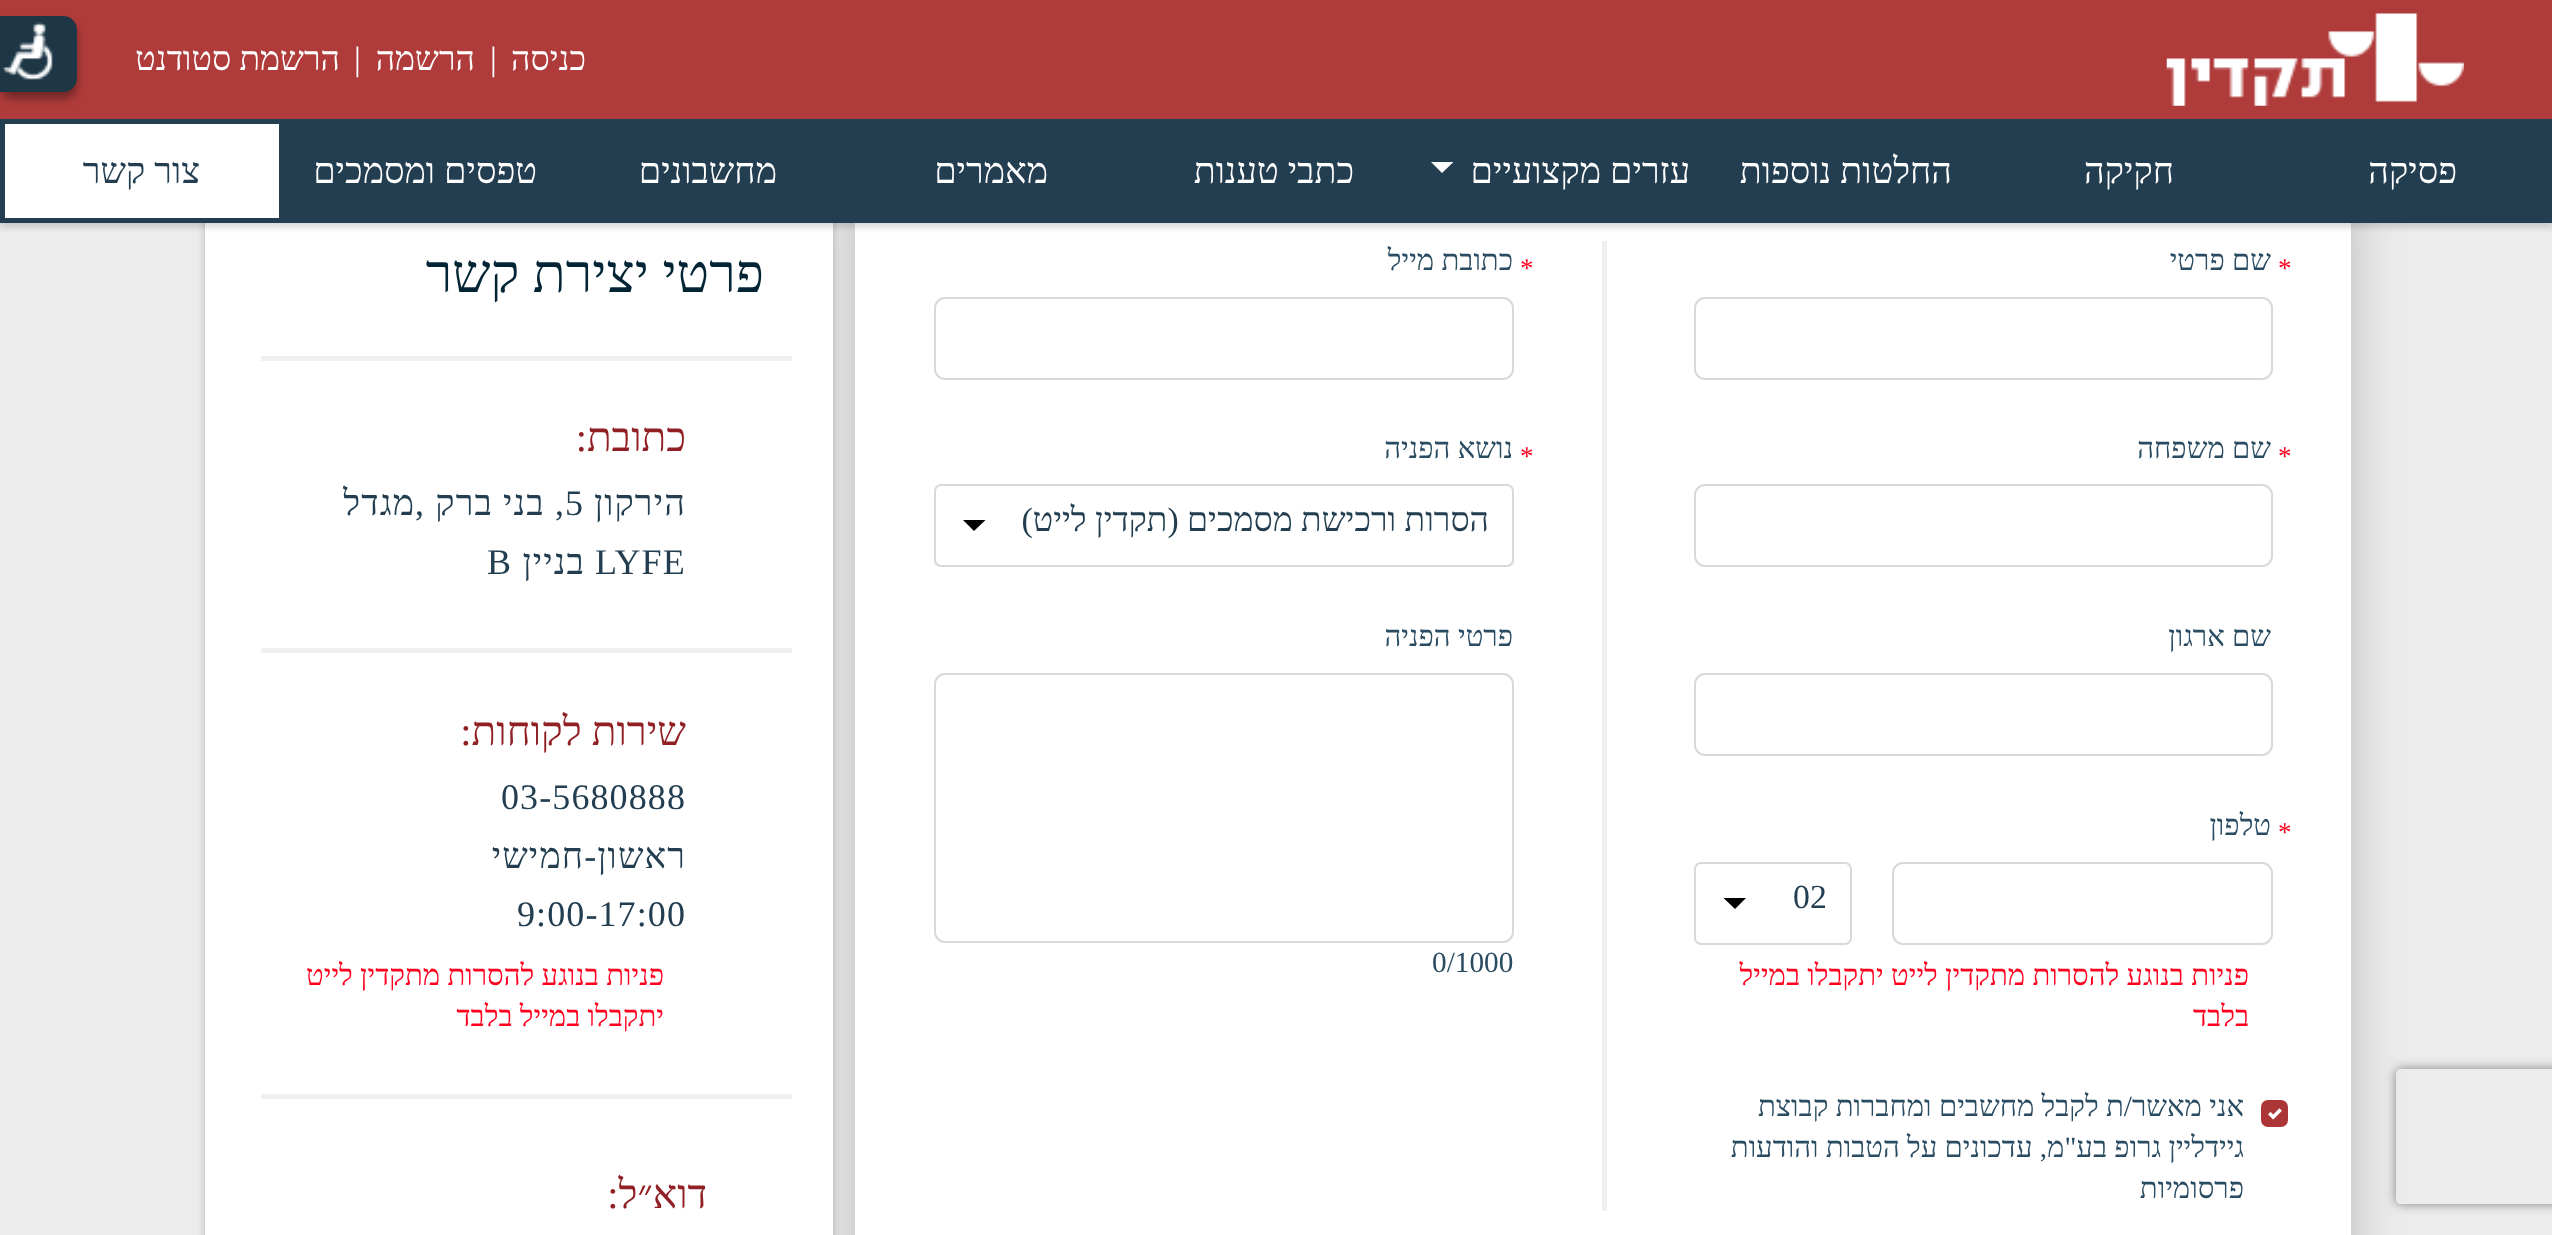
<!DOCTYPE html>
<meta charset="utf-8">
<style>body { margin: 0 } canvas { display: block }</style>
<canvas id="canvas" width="2552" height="1235"></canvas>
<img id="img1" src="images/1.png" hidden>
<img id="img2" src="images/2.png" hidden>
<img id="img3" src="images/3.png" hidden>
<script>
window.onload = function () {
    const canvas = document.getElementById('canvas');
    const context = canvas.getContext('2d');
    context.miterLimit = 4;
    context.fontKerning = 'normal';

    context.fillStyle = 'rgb(236, 236, 236)';
    context.fillRect(0, 0, 2552, 1235);
    context.fillStyle = 'rgb(175, 60, 59)';
    context.fillRect(0, 0, 2552, 119);
    context.drawImage(document.getElementById('img1'), 2166, 13, 298, 93);
    context.fillStyle = 'rgba(0, 0, 0, 0.21)';
    context.filter = 'blur(26px)';
    context.beginPath();
    context.roundRect(855, 200, 1496, 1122, 9);
    context.fill();
    context.filter = 'none';
    context.fillStyle = 'rgb(255, 255, 255)';
    context.fillRect(855, 223, 1496, 1012);
    context.fillStyle = 'rgba(0, 0, 0, 0.21)';
    context.filter = 'blur(4.5px)';
    context.beginPath();
    context.roundRect(205, 200, 628, 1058, 9);
    context.fill();
    context.filter = 'none';
    context.fillStyle = 'rgb(255, 255, 255)';
    context.fillRect(205, 223, 628, 1012);
    context.fillStyle = 'rgba(0, 0, 0, 0.16)';
    context.filter = 'blur(3.5px)';
    context.beginPath();
    context.rect(0, 124, 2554, 103);
    context.fill();
    context.filter = 'none';
    context.fillStyle = 'rgb(34, 62, 80)';
    context.fillRect(284, 119, 2268, 104);
    context.fillStyle = 'rgb(254, 254, 254)';
    context.beginPath();
    context.moveTo(1431, 162);
    context.lineTo(1453.5, 162);
    context.lineTo(1442, 173);
    context.closePath();
    context.fill();
    context.fillStyle = 'rgb(255, 255, 255)';
    context.beginPath();
    context.rect(2.5, 121.5, 279, 99);
    context.fill();
    context.strokeStyle = 'rgb(34, 62, 80)';
    context.lineWidth = 5;
    context.stroke();
    context.fillStyle = 'rgba(0, 0, 0, 0.35)';
    context.filter = 'blur(4.5px)';
    context.beginPath();
    context.roundRect(0, 23, 77, 76, 14);
    context.fill();
    context.filter = 'none';
    context.fillStyle = 'rgb(30, 55, 70)';
    context.beginPath();
    context.roundRect(0, 16, 77, 76, [0, 14, 14, 0]);
    context.fill();
    context.drawImage(document.getElementById('img2'), 2, 22, 51, 58);
    context.save();
    context.beginPath();
    context.moveTo(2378, 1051);
    context.lineTo(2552, 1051);
    context.lineTo(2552, 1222);
    context.lineTo(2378, 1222);
    context.closePath();
    context.moveTo(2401, 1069);
    context.lineTo(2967, 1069);
    context.bezierCurveTo(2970, 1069, 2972, 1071, 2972, 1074);
    context.lineTo(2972, 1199);
    context.bezierCurveTo(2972, 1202, 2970, 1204, 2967, 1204);
    context.lineTo(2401, 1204);
    context.bezierCurveTo(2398, 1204, 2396, 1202, 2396, 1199);
    context.lineTo(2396, 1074);
    context.bezierCurveTo(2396, 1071, 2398, 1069, 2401, 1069);
    context.closePath();
    context.clip('evenodd');
    context.fillStyle = 'rgb(128, 128, 128)';
    context.filter = 'blur(5.5px)';
    context.beginPath();
    context.roundRect(2396, 1069, 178, 135, 5);
    context.fill();
    context.filter = 'none';
    context.restore();
    context.fillStyle = 'rgb(240, 240, 240)';
    context.fillRect(1602, 241, 5, 970);
    context.beginPath();
    context.roundRect(1695, 298, 577, 81, 10);
    context.strokeStyle = 'rgb(217, 217, 217)';
    context.lineWidth = 2;
    context.stroke();
    context.beginPath();
    context.roundRect(1695, 485, 577, 81, 10);
    context.stroke();
    context.beginPath();
    context.roundRect(1695, 674, 577, 81, 10);
    context.stroke();
    context.beginPath();
    context.roundRect(1893, 863, 379, 81, 10);
    context.stroke();
    context.beginPath();
    context.roundRect(1695, 863, 156, 81, 6);
    context.stroke();
    context.fillStyle = 'rgb(0, 0, 0)';
    context.beginPath();
    context.moveTo(1723.5, 898);
    context.lineTo(1746, 898);
    context.lineTo(1735, 909);
    context.closePath();
    context.fill();
    context.fillStyle = 'rgb(172, 54, 55)';
    context.beginPath();
    context.roundRect(2262, 1101, 25, 25, 6);
    context.fill();
    context.strokeStyle = 'rgb(172, 54, 55)';
    context.stroke();
    context.drawImage(document.getElementById('img3'), 2268, 1108, 14, 12);
    context.beginPath();
    context.roundRect(935, 298, 578, 81, 10);
    context.strokeStyle = 'rgb(217, 217, 217)';
    context.stroke();
    context.beginPath();
    context.roundRect(935, 485, 578, 81, 6);
    context.stroke();
    context.fillStyle = 'rgb(0, 0, 0)';
    context.beginPath();
    context.moveTo(963, 520);
    context.lineTo(985.5, 520);
    context.lineTo(974, 531);
    context.closePath();
    context.fill();
    context.beginPath();
    context.roundRect(935, 674, 578, 268, 10);
    context.stroke();
    context.fillStyle = 'rgb(240, 240, 240)';
    context.fillRect(261, 356, 531, 5);
    context.fillRect(261, 648, 531, 5);
    context.fillRect(261, 1094, 531, 5);
    context.direction = 'rtl';
    context.font = '33.75px Liberation Serif';
    context.fillStyle = 'rgb(255, 255, 255)';
    context.fillText('כניסה', 586, 70);
    context.direction = 'ltr';
    context.fillText('|', 490, 70);
    context.direction = 'rtl';
    context.fillText('הרשמה', 475, 70);
    context.direction = 'ltr';
    context.fillText('|', 354, 70);
    context.direction = 'rtl';
    context.fillText('הרשמת סטודנט', 340, 70);
    context.font = '36px Liberation Serif';
    context.fillText('פסיקה', 2457, 183);
    context.fillText('חקיקה', 2174, 183);
    context.fillText('החלטות נוספות', 1952, 183);
    context.fillText('עזרים מקצועיים', 1690, 183);
    context.fillText('כתבי טענות', 1354, 183);
    context.fillText('מאמרים', 1048, 183);
    context.fillText('מחשבונים', 777, 183);
    context.fillText('טפסים ומסמכים', 537, 183);
    context.fillStyle = 'rgb(34, 62, 80)';
    context.fillText('צור קשר', 200, 183);
    context.direction = 'ltr';
    context.font = '27px Liberation Serif';
    context.fillStyle = 'rgb(255, 0, 31)';
    context.fillText('*', 2278, 277);
    context.direction = 'rtl';
    context.font = '29.25px Liberation Serif';
    context.fillStyle = 'rgb(42, 76, 98)';
    context.fillText('שם פרטי', 2271, 270);
    context.direction = 'ltr';
    context.font = '27px Liberation Serif';
    context.fillStyle = 'rgb(255, 0, 31)';
    context.fillText('*', 2278, 465);
    context.direction = 'rtl';
    context.font = '29.25px Liberation Serif';
    context.fillStyle = 'rgb(42, 76, 98)';
    context.fillText('שם משפחה', 2271, 458);
    context.fillText('שם ארגון', 2271, 646);
    context.direction = 'ltr';
    context.font = '27px Liberation Serif';
    context.fillStyle = 'rgb(255, 0, 31)';
    context.fillText('*', 2278, 841);
    context.direction = 'rtl';
    context.font = '29.25px Liberation Serif';
    context.fillStyle = 'rgb(42, 76, 98)';
    context.fillText('טלפון', 2271, 835);
    context.direction = 'ltr';
    context.font = '33.75px Liberation Serif';
    context.fillStyle = 'rgb(34, 62, 80)';
    context.fillText('02', 1793, 908);
    context.direction = 'rtl';
    context.font = '29.25px Liberation Serif';
    context.fillStyle = 'rgb(255, 0, 31)';
    context.fillText('פניות בנוגע להסרות מתקדין לייט יתקבלו במייל', 2249, 985);
    context.fillText('בלבד', 2249, 1026);
    context.fillStyle = 'rgb(42, 76, 98)';
    context.fillText('אני מאשר/ת לקבל מחשבים ומחברות קבוצת', 2244, 1116);
    context.fillText('גיידליין גרופ בע"מ, עדכונים על הטבות והודעות', 2244, 1157);
    context.fillText('פרסומיות', 2244, 1198);
    context.direction = 'ltr';
    context.font = '27px Liberation Serif';
    context.fillStyle = 'rgb(255, 0, 31)';
    context.fillText('*', 1520, 277);
    context.direction = 'rtl';
    context.font = '29.25px Liberation Serif';
    context.fillStyle = 'rgb(42, 76, 98)';
    context.fillText('כתובת מייל', 1513, 270);
    context.direction = 'ltr';
    context.font = '27px Liberation Serif';
    context.fillStyle = 'rgb(255, 0, 31)';
    context.fillText('*', 1520, 465);
    context.direction = 'rtl';
    context.font = '29.25px Liberation Serif';
    context.fillStyle = 'rgb(42, 76, 98)';
    context.fillText('נושא הפניה', 1513, 458);
    context.font = '33.75px Liberation Serif';
    context.fillStyle = 'rgb(34, 62, 80)';
    context.fillText('הסרות ורכישת מסמכים (תקדין לייט)', 1489, 531);
    context.font = '29.25px Liberation Serif';
    context.fillStyle = 'rgb(42, 76, 98)';
    context.fillText('פרטי הפניה', 1513, 646);
    context.direction = 'ltr';
    context.fillText('0/1000', 1432, 972);
    context.direction = 'rtl';
    context.font = '54px Liberation Serif';
    context.fillStyle = 'rgb(3, 36, 53)';
    context.fillText('פרטי יצירת קשר', 764, 292);
    context.font = '40.5px Liberation Serif';
    context.fillStyle = 'rgb(145, 32, 37)';
    context.fillText('כתובת:', 686, 451);
    context.letterSpacing = '1.1px';
    context.font = '36px Liberation Serif';
    context.fillStyle = 'rgb(34, 62, 80)';
    context.fillText('הירקון', 686, 515);
    context.direction = 'ltr';
    context.fillText('5', 565, 515);
    context.direction = 'rtl';
    context.fillText(', בני ברק ,מגדל', 565, 515);
    context.direction = 'ltr';
    context.fillText('LYFE', 595, 574);
    context.direction = 'rtl';
    context.fillText('בניין', 585, 574);
    context.direction = 'ltr';
    context.fillText('B', 487, 574);
    context.letterSpacing = '0px';
    context.direction = 'rtl';
    context.font = '40.5px Liberation Serif';
    context.fillStyle = 'rgb(145, 32, 37)';
    context.fillText('שירות לקוחות:', 686, 745);
    context.letterSpacing = '1.1px';
    context.direction = 'ltr';
    context.font = '36px Liberation Serif';
    context.fillStyle = 'rgb(34, 62, 80)';
    context.fillText('03-5680888', 501, 809);
    context.direction = 'rtl';
    context.fillText('ראשון-חמישי', 686, 868);
    context.direction = 'ltr';
    context.fillText('9:00-17:00', 517, 926);
    context.letterSpacing = '0px';
    context.direction = 'rtl';
    context.font = '29.25px Liberation Serif';
    context.fillStyle = 'rgb(255, 0, 31)';
    context.fillText('פניות בנוגע להסרות מתקדין לייט', 664, 985);
    context.fillText('יתקבלו במייל בלבד', 664, 1026);
    context.font = '40.5px Liberation Serif';
    context.fillStyle = 'rgb(145, 32, 37)';
    context.fillText('דוא״ל:', 707, 1208);
};
</script>
